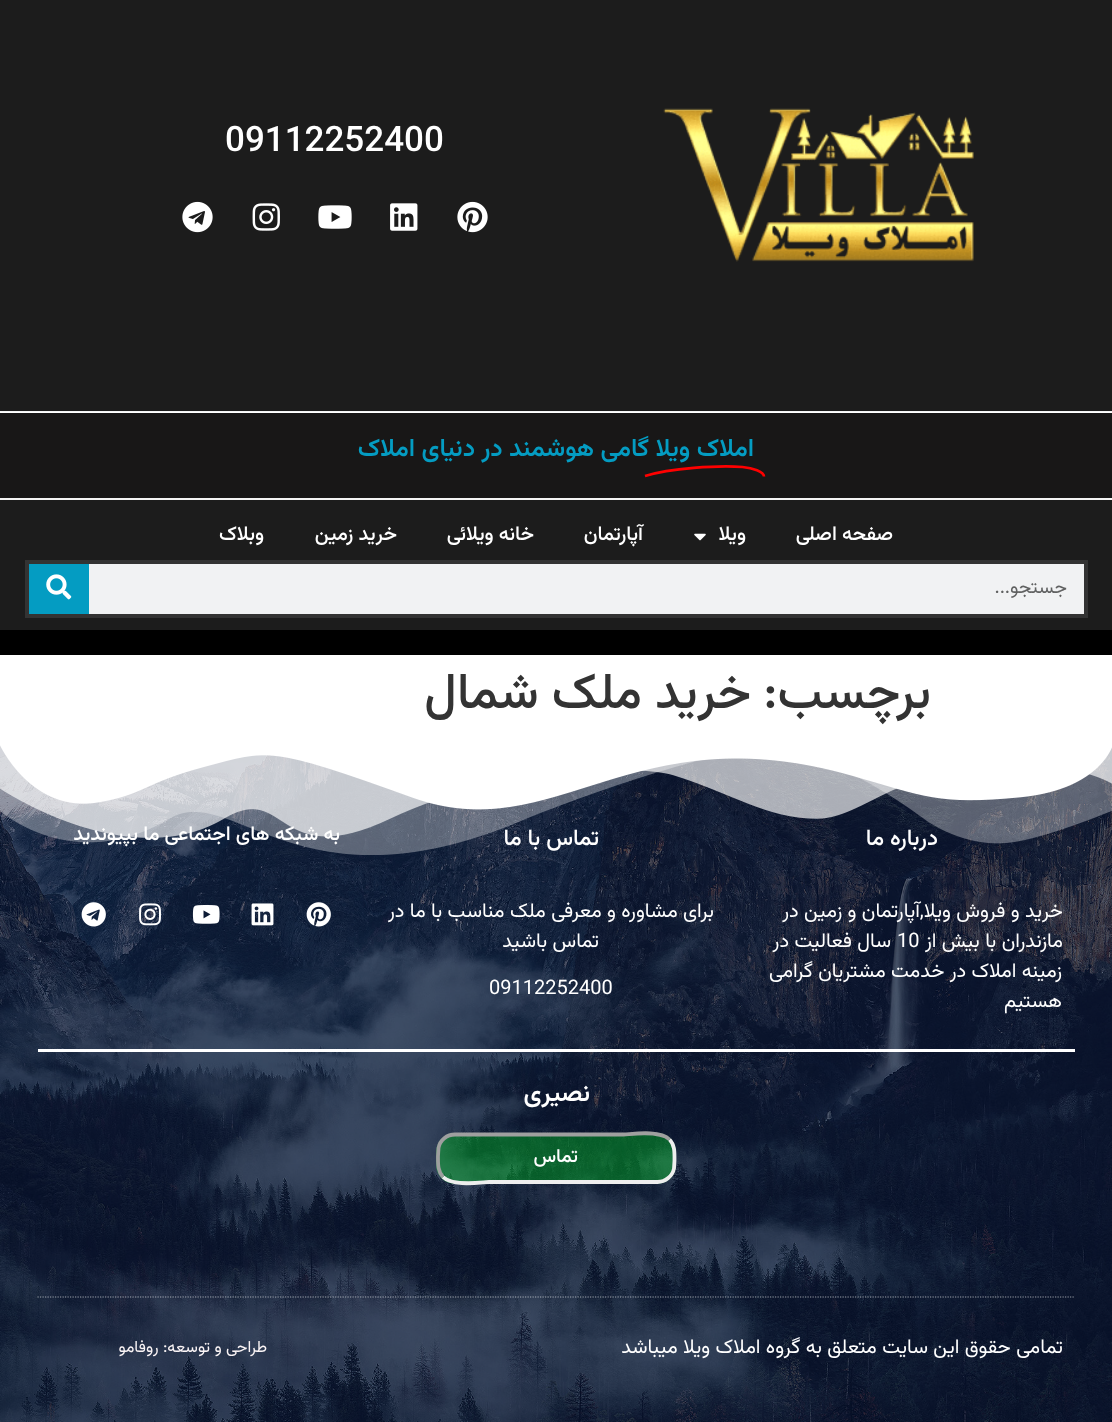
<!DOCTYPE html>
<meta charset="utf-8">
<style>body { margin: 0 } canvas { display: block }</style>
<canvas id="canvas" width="1112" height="1422"></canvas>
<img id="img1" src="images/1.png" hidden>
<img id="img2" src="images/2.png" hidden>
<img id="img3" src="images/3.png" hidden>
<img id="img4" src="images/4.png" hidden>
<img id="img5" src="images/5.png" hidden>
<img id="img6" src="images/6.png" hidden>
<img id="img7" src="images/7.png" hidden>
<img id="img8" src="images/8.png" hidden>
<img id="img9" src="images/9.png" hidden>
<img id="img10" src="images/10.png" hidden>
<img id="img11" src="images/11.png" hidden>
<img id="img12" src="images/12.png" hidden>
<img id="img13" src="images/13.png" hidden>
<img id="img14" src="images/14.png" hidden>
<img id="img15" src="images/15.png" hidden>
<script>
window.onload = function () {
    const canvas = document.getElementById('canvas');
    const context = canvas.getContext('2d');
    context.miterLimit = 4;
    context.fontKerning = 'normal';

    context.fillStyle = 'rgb(255, 255, 255)';
    context.fillRect(0, 0, 1112, 1422);
    context.fillStyle = 'rgb(28, 28, 28)';
    context.fillRect(0, 0, 1112, 411);
    context.drawImage(document.getElementById('img1'), 663, 108, 311, 154);
    context.drawImage(document.getElementById('img2'), 457, 201, 31, 32);
    context.drawImage(document.getElementById('img3'), 390, 203, 28, 28);
    context.drawImage(document.getElementById('img4'), 318, 205, 34, 24);
    context.drawImage(document.getElementById('img5'), 252, 203, 28, 28);
    context.drawImage(document.getElementById('img6'), 182, 201, 31, 32);
    context.fillStyle = 'rgb(24, 23, 23)';
    context.fillRect(0, 413, 1112, 85);
    context.fillStyle = 'rgb(244, 244, 244)';
    context.fillRect(0, 411, 1112, 1);
    context.fillRect(0, 498, 1112, 2);
    context.beginPath();
    context.moveTo(645, 476);
    context.bezierCurveTo(670, 468.5, 717.5, 465, 742.5, 467);
    context.bezierCurveTo(752.5, 468, 764, 471.5, 764, 476.5);
    context.strokeStyle = 'rgb(255, 0, 0)';
    context.lineWidth = 2.7;
    context.stroke();
    context.fillStyle = 'rgb(28, 28, 28)';
    context.fillRect(0, 500, 1112, 130);
    context.drawImage(document.getElementById('img7'), 694, 533, 12, 8);
    context.strokeStyle = 'rgb(51, 51, 51)';
    context.lineWidth = 4;
    context.strokeRect(27, 562, 1059, 54);
    context.fillStyle = 'rgb(241, 242, 243)';
    context.fillRect(89, 564, 995, 50);
    context.fillStyle = 'rgb(4, 156, 194)';
    context.fillRect(29, 564, 60, 50);
    context.drawImage(document.getElementById('img8'), 46, 574, 26, 26);
    context.fillStyle = 'rgb(0, 0, 0)';
    context.fillRect(0, 630, 1112, 25);
    context.drawImage(document.getElementById('img9'), 0, 745, 1112, 677);
    context.drawImage(document.getElementById('img10'), 0, 744, 1112, 111);
    context.drawImage(document.getElementById('img11'), 306, 902, 25, 25);
    context.drawImage(document.getElementById('img12'), 251, 903, 23, 23);
    context.drawImage(document.getElementById('img13'), 192, 905, 28, 19);
    context.drawImage(document.getElementById('img14'), 139, 903, 22, 23);
    context.drawImage(document.getElementById('img15'), 81, 902, 25, 25);
    context.fillStyle = 'rgb(255, 255, 255)';
    context.fillRect(38, 1049, 1037, 3);
    context.fillStyle = 'rgba(0, 255, 35, 0.31)';
    context.beginPath();
    context.roundRect(436, 1133, 240, 51, 19);
    context.fill();
    context.beginPath();
    context.moveTo(669.5, 1139.5);
    context.bezierCurveTo(675, 1145, 674.5, 1153, 674.5, 1160.5);
    context.lineTo(674, 1168.5);
    context.bezierCurveTo(672.5, 1176, 665.5, 1182, 657.5, 1182);
    context.lineTo(489, 1182);
    context.bezierCurveTo(482.5, 1182, 453, 1187, 443, 1177);
    context.strokeStyle = 'rgb(238, 238, 238)';
    context.lineWidth = 3.8;
    context.stroke();
    context.beginPath();
    context.moveTo(443, 1177);
    context.bezierCurveTo(437.5, 1171, 438, 1163.5, 438, 1156);
    context.lineTo(438.5, 1148);
    context.bezierCurveTo(440, 1140, 447, 1134.5, 455, 1134.5);
    context.lineTo(624, 1134.5);
    context.bezierCurveTo(630, 1134.5, 659.5, 1129.5, 669.5, 1139.5);
    context.strokeStyle = 'rgb(159, 159, 159)';
    context.stroke();
    context.beginPath();
    context.moveTo(37.5, 1297);
    context.lineTo(1075, 1297);
    context.strokeStyle = 'rgba(255, 255, 255, 0.59)';
    context.lineWidth = 1.2;
    context.setLineDash([1.25, 1.25]);
    context.stroke();
    context.font = '500 35px Vazirmatn';
    context.fillStyle = 'rgb(255, 255, 255)';
    context.fillText('09112252400', 225, 151);
    context.direction = 'rtl';
    context.font = '600 25px Vazirmatn';
    context.fillStyle = 'rgb(4, 156, 194)';
    context.fillText('املاک ویلا', 754, 456);
    context.fillText('گامی هوشمند در دنیای املاک', 649, 456);
    context.font = '500 20px Vazirmatn';
    context.fillStyle = 'rgb(255, 255, 255)';
    context.fillText('صفحه اصلی', 893, 540);
    context.fillText('ویلا', 746, 540);
    context.fillText('آپارتمان', 643, 540);
    context.fillText('خانه ویلائی', 534, 540);
    context.fillText('خرید زمین', 397, 540);
    context.fillText('وبلاک', 264, 540);
    context.font = '19px Vazirmatn';
    context.fillStyle = 'rgb(96, 97, 97)';
    context.fillText('جستجو...', 1067, 593);
    context.font = '500 50px Vazirmatn';
    context.fillStyle = 'rgb(51, 51, 51)';
    context.fillText('برچسب:', 931, 708);
    context.fillText('خرید ملک شمال', 751, 708);
    context.font = '500 22.5px Vazirmatn';
    context.fillStyle = 'rgb(255, 255, 255)';
    context.fillText('درباره ما', 938, 845);
    context.font = '20px Vazirmatn';
    context.fillText('خرید و فروش ویلا,آپارتمان و زمین در', 1063, 917);
    context.fillText('مازندران با بیش از', 1063, 947);
    context.direction = 'ltr';
    context.fillText('10', 897, 947);
    context.direction = 'rtl';
    context.fillText('سال فعالیت در', 891, 947);
    context.fillText('زمینه املاک در خدمت مشتریان گرامی', 1062, 977);
    context.fillText('هستیم', 1062, 1007);
    context.font = '500 22.5px Vazirmatn';
    context.fillText('تماس با ما', 599, 845);
    context.font = '20px Vazirmatn';
    context.fillText('برای مشاوره و معرفی ملک مناسب با ما در', 714, 917);
    context.fillText('تماس باشید', 599, 947);
    context.direction = 'ltr';
    context.fillText('09112252400', 489, 994);
    context.direction = 'rtl';
    context.font = '500 20px Vazirmatn';
    context.fillText('به شبکه های اجتماعی ما بپیوندید', 340, 840);
    context.font = '600 25px Vazirmatn';
    context.fillText('نصیری', 590, 1101);
    context.font = '500 19px Vazirmatn';
    context.fillText('تماس', 578, 1162);
    context.font = '20px Vazirmatn';
    context.fillText('تمامی حقوق این سایت متعلق به گروه املاک ویلا میباشد', 1063, 1353);
    context.font = '16.25px Vazirmatn';
    context.fillStyle = 'rgb(251, 245, 246)';
    context.fillText('طراحی و توسعه: روفامو', 267, 1352);
};
</script>
